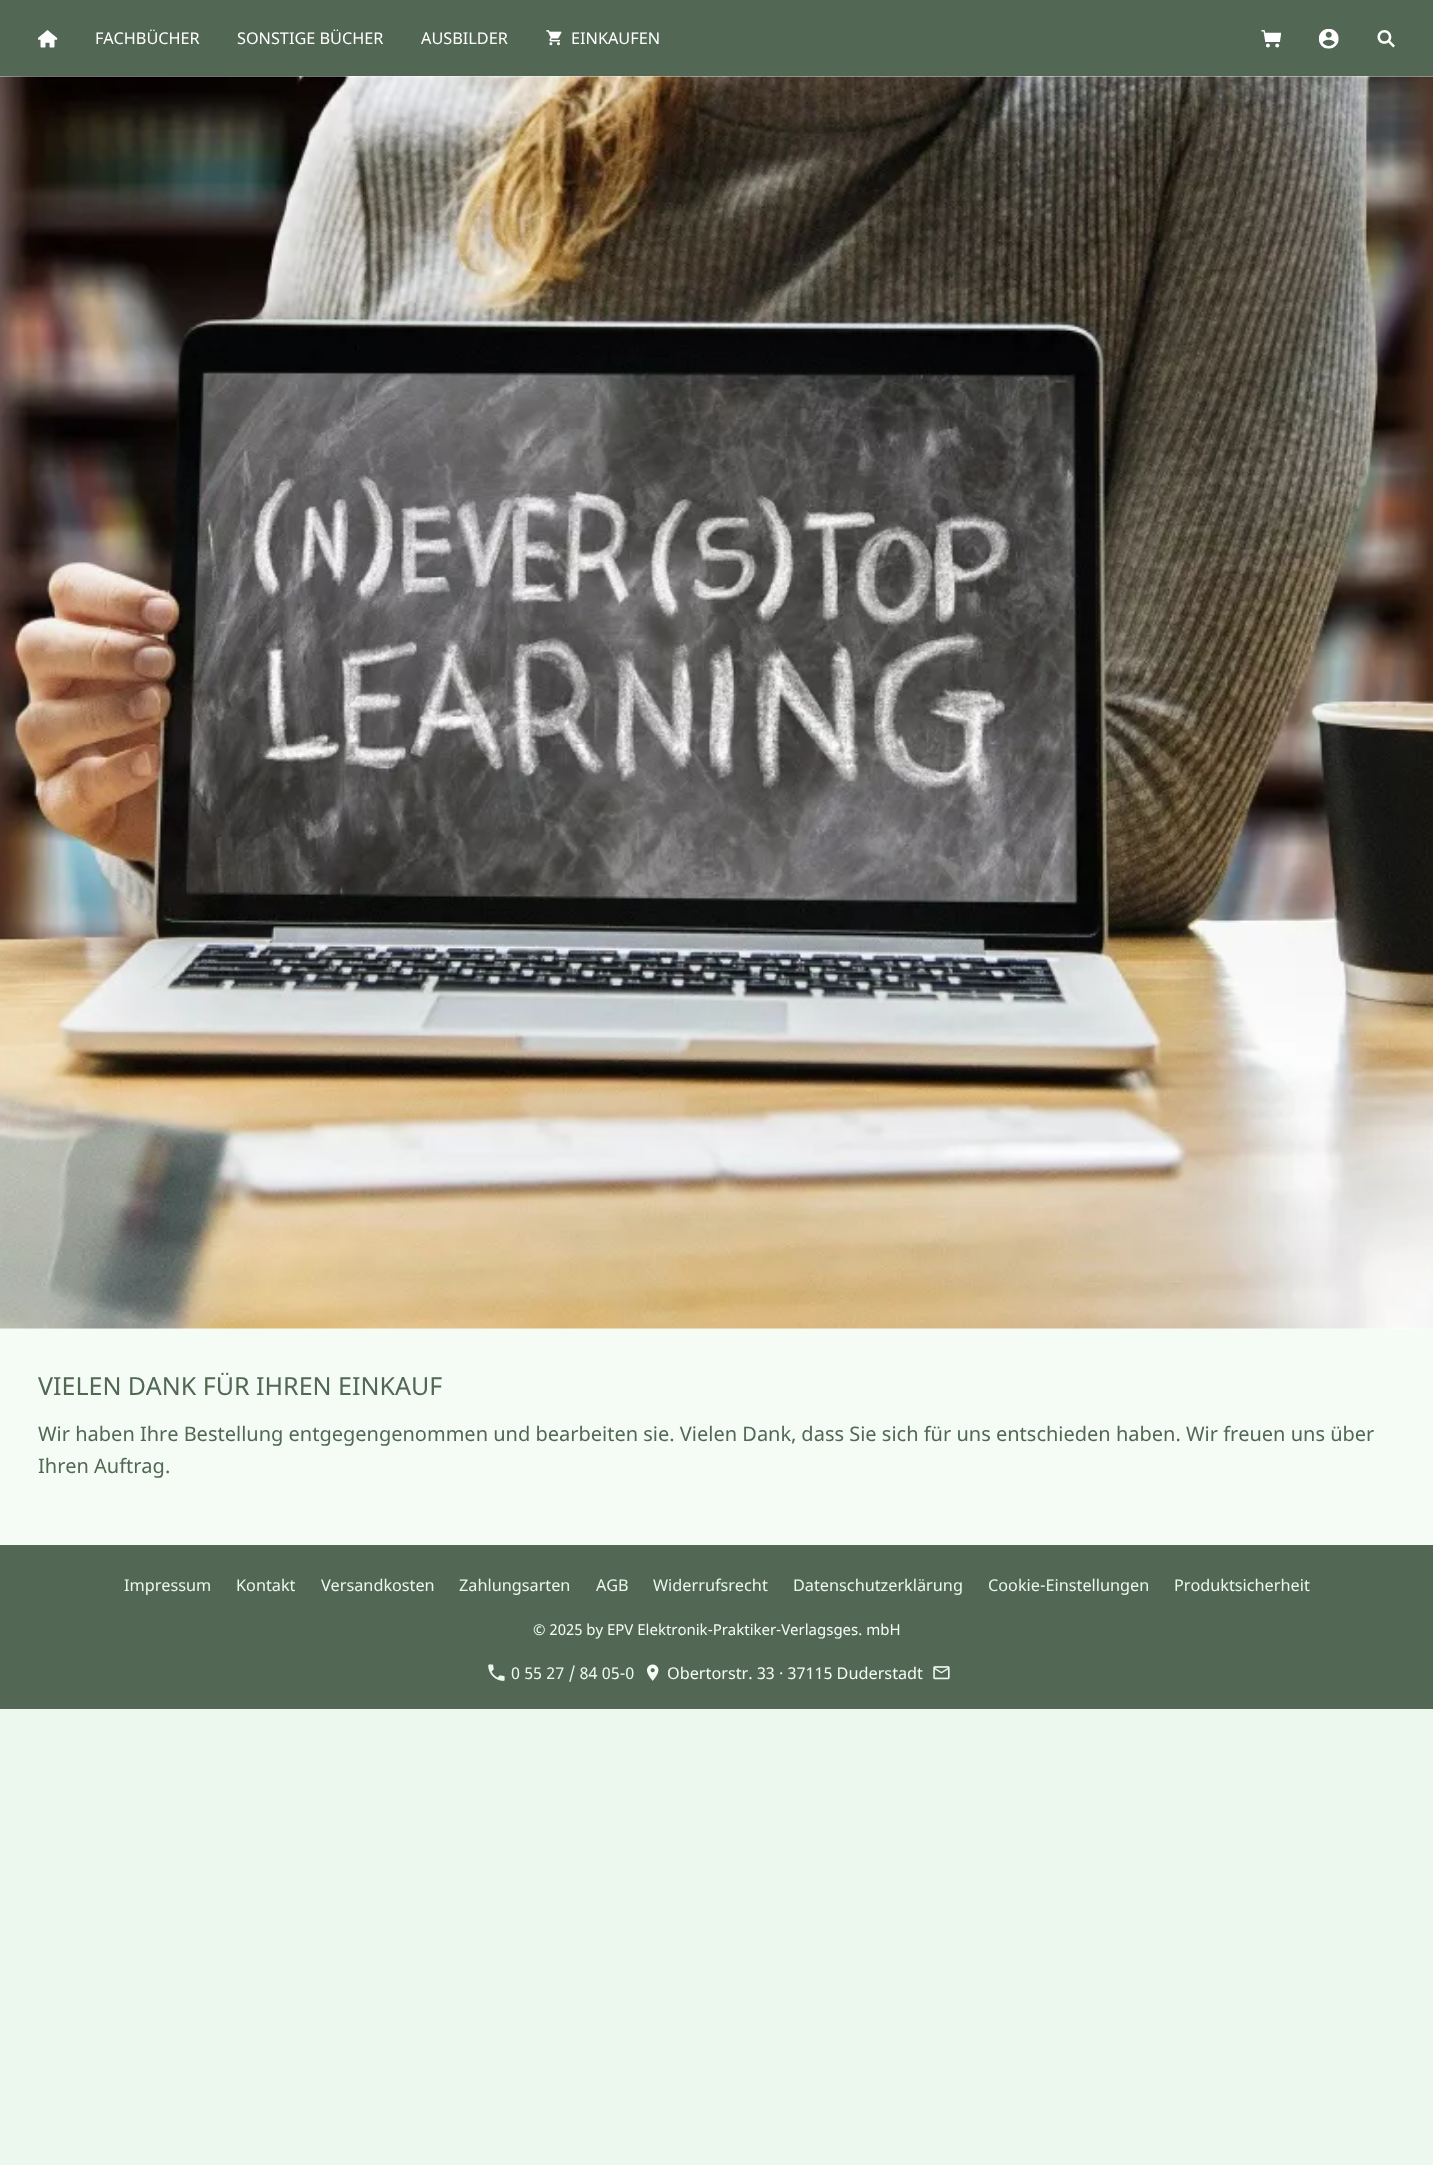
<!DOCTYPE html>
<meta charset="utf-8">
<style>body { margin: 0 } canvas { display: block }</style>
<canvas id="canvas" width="1433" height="2165"></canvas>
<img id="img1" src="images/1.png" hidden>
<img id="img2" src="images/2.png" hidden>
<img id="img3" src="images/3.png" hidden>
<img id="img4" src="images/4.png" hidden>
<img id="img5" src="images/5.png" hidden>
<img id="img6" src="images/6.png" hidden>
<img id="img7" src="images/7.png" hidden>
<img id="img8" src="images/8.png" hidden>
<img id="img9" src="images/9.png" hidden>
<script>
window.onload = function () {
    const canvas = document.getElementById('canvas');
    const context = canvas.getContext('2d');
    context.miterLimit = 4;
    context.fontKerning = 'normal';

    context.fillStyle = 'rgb(236, 247, 238)';
    context.fillRect(0, 0, 1433, 2165);
    context.fillStyle = 'rgb(82, 103, 84)';
    context.fillRect(0, 0, 1433, 76);
    context.drawImage(document.getElementById('img1'), 38, 30, 20, 18);
    context.drawImage(document.getElementById('img2'), 546, 30, 16, 16);
    context.drawImage(document.getElementById('img3'), 1261, 30, 20, 18);
    context.drawImage(document.getElementById('img4'), 1319, 29, 20, 20);
    context.drawImage(document.getElementById('img5'), 1377, 30, 18, 18);
    context.fillStyle = 'rgb(255, 255, 255)';
    context.fillRect(0, 76, 1433, 1253);
    context.drawImage(document.getElementById('img6'), 0, 76, 1433, 1253);
    context.fillStyle = 'rgb(244, 252, 245)';
    context.fillRect(0, 1329, 1433, 216);
    context.fillStyle = 'rgb(82, 103, 84)';
    context.fillRect(0, 1545, 1433, 164);
    context.drawImage(document.getElementById('img7'), 488, 1664, 17, 17);
    context.drawImage(document.getElementById('img8'), 647, 1664, 12, 17);
    context.drawImage(document.getElementById('img9'), 933, 1666, 17, 14);
    context.font = '16.25px Noto Sans';
    context.fillStyle = 'rgb(255, 255, 255)';
    context.fillText('FACHBÜCHER', 95, 44);
    context.fillText('SONSTIGE BÜCHER', 237, 44);
    context.fillText('AUSBILDER', 421, 44);
    context.fillText('EINKAUFEN', 571, 44);
    context.font = '25px Noto Sans';
    context.fillStyle = 'rgb(82, 103, 84)';
    context.fillText('VIELEN DANK FÜR IHREN EINKAUF', 38, 1395);
    context.font = '20px Noto Sans';
    context.fillText('Wir haben Ihre Bestellung entgegengenommen und bearbeiten sie. Vielen Dank, dass Sie sich für uns entschieden haben. Wir freuen uns über', 38, 1441);
    context.fillText('Ihren Auftrag.', 38, 1473);
    context.font = '16.25px Noto Sans';
    context.fillStyle = 'rgb(236, 247, 238)';
    context.fillText('Impressum', 124, 1591);
    context.fillText('Kontakt', 236, 1591);
    context.fillText('Versandkosten', 321, 1591);
    context.fillText('Zahlungsarten', 459, 1591);
    context.fillText('AGB', 596, 1591);
    context.fillText('Widerrufsrecht', 653, 1591);
    context.fillText('Datenschutzerklärung', 793, 1591);
    context.fillText('Cookie-Einstellungen', 988, 1591);
    context.fillText('Produktsicherheit', 1174, 1591);
    context.font = '15px Noto Sans';
    context.fillStyle = 'rgb(244, 252, 245)';
    context.fillText('© 2025 by EPV Elektronik-Praktiker-Verlagsges. mbH', 533, 1635);
    context.font = '16.25px Noto Sans';
    context.fillStyle = 'rgb(236, 247, 238)';
    context.fillText('0 55 27 / 84 05-0', 511, 1679);
    context.fillStyle = 'rgb(244, 252, 245)';
    context.fillText('Obertorstr. 33 · 37115 Duderstadt', 667, 1679);
};
</script>
